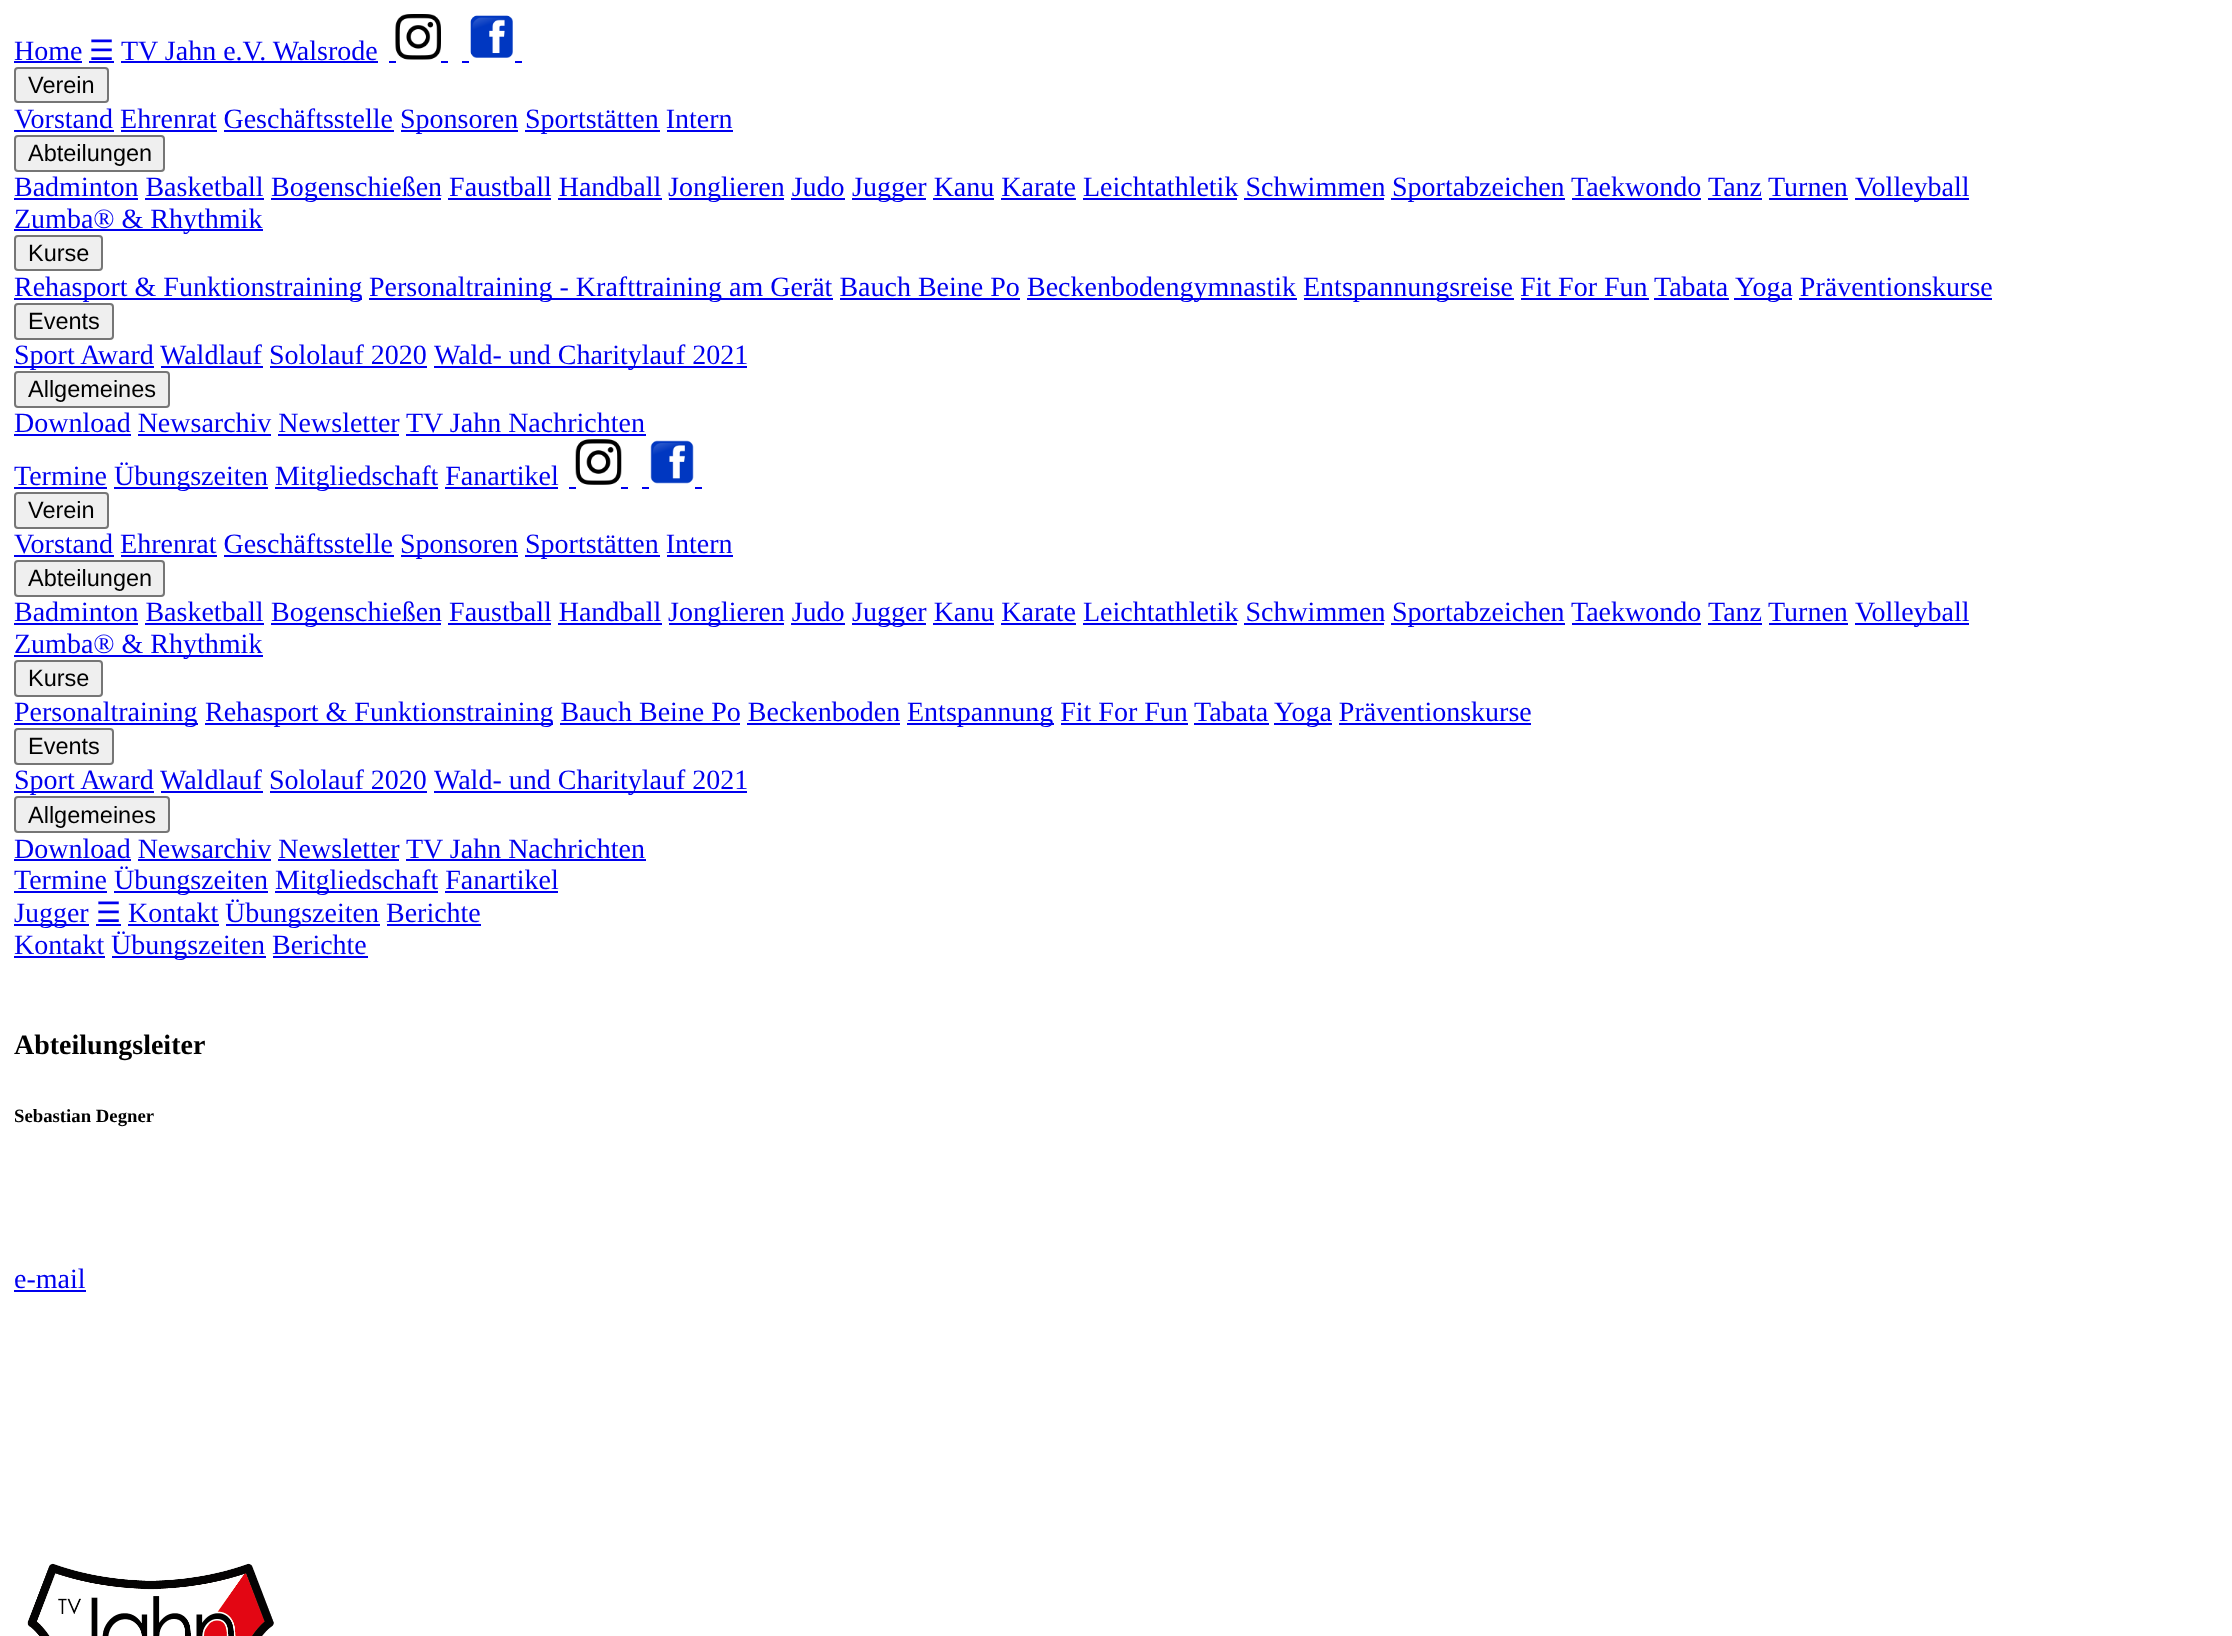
<!DOCTYPE html>
<meta charset="utf-8">
<style>body { margin: 0 } canvas { display: block }</style>
<canvas id="canvas" width="2232" height="1636"></canvas>
<img id="img1" src="images/1.png" hidden>
<img id="img2" src="images/2.png" hidden>
<img id="img3" src="images/3.png" hidden>
<img id="img4" src="images/4.png" hidden>
<img id="img5" src="images/5.png" hidden>
<script>
window.onload = function () {
    const canvas = document.getElementById('canvas');
    const context = canvas.getContext('2d');
    context.miterLimit = 4;
    context.fontKerning = 'normal';

    context.fillStyle = 'rgb(255, 255, 255)';
    context.fillRect(0, 0, 2232, 1636);
    context.fillStyle = 'rgb(0, 0, 238)';
    context.fillRect(14, 61, 68, 2);
    context.fillRect(89, 61, 25, 2);
    context.fillRect(121, 61, 257, 2);
    context.drawImage(document.getElementById('img1'), 395, 14, 46, 46);
    context.drawImage(document.getElementById('img2'), 470, 15, 43, 43);
    context.fillRect(389, 61, 7, 2);
    context.fillRect(441, 61, 7, 2);
    context.fillRect(462, 61, 7, 2);
    context.fillRect(515, 61, 7, 2);
    context.fillStyle = 'rgb(239, 239, 239)';
    context.beginPath();
    context.roundRect(15, 68, 93, 34, 3);
    context.fill();
    context.strokeStyle = 'rgb(118, 118, 118)';
    context.lineWidth = 2;
    context.stroke();
    context.fillStyle = 'rgb(0, 0, 238)';
    context.fillRect(14, 130, 100, 2);
    context.fillRect(401, 130, 117, 2);
    context.fillRect(525, 130, 135, 2);
    context.fillRect(121, 130, 96, 2);
    context.fillRect(224, 130, 170, 2);
    context.fillRect(667, 130, 66, 2);
    context.fillStyle = 'rgb(239, 239, 239)';
    context.beginPath();
    context.roundRect(15, 136, 149, 35, 3);
    context.fill();
    context.stroke();
    context.fillStyle = 'rgb(0, 0, 238)';
    context.fillRect(14, 198, 124, 2);
    context.fillRect(271, 198, 170, 2);
    context.fillRect(669, 198, 115, 2);
    context.fillRect(852, 198, 74, 2);
    context.fillRect(1391, 198, 174, 2);
    context.fillRect(1572, 198, 129, 2);
    context.fillRect(1708, 198, 54, 2);
    context.fillRect(1769, 198, 79, 2);
    context.fillRect(1855, 198, 114, 2);
    context.fillRect(145, 198, 119, 2);
    context.fillRect(448, 198, 103, 2);
    context.fillRect(558, 198, 104, 2);
    context.fillRect(791, 198, 54, 2);
    context.fillRect(933, 198, 61, 2);
    context.fillRect(1001, 198, 75, 2);
    context.fillRect(1083, 198, 154, 2);
    context.fillRect(1244, 198, 140, 2);
    context.fillRect(14, 229, 249, 2);
    context.fillStyle = 'rgb(239, 239, 239)';
    context.beginPath();
    context.roundRect(15, 236, 87, 34, 3);
    context.fill();
    context.stroke();
    context.fillStyle = 'rgb(0, 0, 238)';
    context.fillRect(14, 298, 348, 2);
    context.fillRect(369, 298, 464, 2);
    context.fillRect(1027, 298, 270, 2);
    context.fillRect(1304, 298, 210, 2);
    context.fillRect(1654, 298, 75, 2);
    context.fillRect(1734, 298, 58, 2);
    context.fillRect(840, 298, 180, 2);
    context.fillRect(1521, 298, 128, 2);
    context.fillRect(1799, 298, 193, 2);
    context.fillStyle = 'rgb(239, 239, 239)';
    context.beginPath();
    context.roundRect(15, 304, 98, 35, 3);
    context.fill();
    context.stroke();
    context.fillStyle = 'rgb(0, 0, 238)';
    context.fillRect(14, 366, 140, 2);
    context.fillRect(161, 366, 102, 2);
    context.fillRect(434, 366, 313, 2);
    context.fillRect(270, 366, 157, 2);
    context.fillStyle = 'rgb(239, 239, 239)';
    context.beginPath();
    context.roundRect(15, 372, 154, 35, 3);
    context.fill();
    context.stroke();
    context.fillStyle = 'rgb(0, 0, 238)';
    context.fillRect(14, 434, 117, 2);
    context.fillRect(406, 434, 240, 2);
    context.fillRect(138, 434, 133, 2);
    context.fillRect(278, 434, 121, 2);
    context.fillRect(14, 487, 93, 2);
    context.fillRect(114, 487, 154, 2);
    context.fillRect(275, 487, 163, 2);
    context.drawImage(document.getElementById('img3'), 575, 439, 47, 46);
    context.drawImage(document.getElementById('img4'), 650, 440, 44, 44);
    context.fillRect(445, 487, 113, 2);
    context.fillRect(569, 487, 7, 2);
    context.fillRect(621, 487, 7, 2);
    context.fillRect(642, 487, 7, 2);
    context.fillRect(695, 487, 7, 2);
    context.fillStyle = 'rgb(239, 239, 239)';
    context.beginPath();
    context.roundRect(15, 493, 93, 35, 3);
    context.fill();
    context.stroke();
    context.fillStyle = 'rgb(0, 0, 238)';
    context.fillRect(14, 555, 100, 2);
    context.fillRect(401, 555, 117, 2);
    context.fillRect(525, 555, 135, 2);
    context.fillRect(121, 555, 96, 2);
    context.fillRect(224, 555, 170, 2);
    context.fillRect(667, 555, 66, 2);
    context.fillStyle = 'rgb(239, 239, 239)';
    context.beginPath();
    context.roundRect(15, 561, 149, 35, 3);
    context.fill();
    context.stroke();
    context.fillStyle = 'rgb(0, 0, 238)';
    context.fillRect(14, 623, 124, 2);
    context.fillRect(271, 623, 170, 2);
    context.fillRect(669, 623, 115, 2);
    context.fillRect(852, 623, 74, 2);
    context.fillRect(1391, 623, 174, 2);
    context.fillRect(1572, 623, 129, 2);
    context.fillRect(1708, 623, 54, 2);
    context.fillRect(1769, 623, 79, 2);
    context.fillRect(1855, 623, 114, 2);
    context.fillRect(145, 623, 119, 2);
    context.fillRect(448, 623, 103, 2);
    context.fillRect(558, 623, 104, 2);
    context.fillRect(791, 623, 54, 2);
    context.fillRect(933, 623, 61, 2);
    context.fillRect(1001, 623, 75, 2);
    context.fillRect(1083, 623, 154, 2);
    context.fillRect(1244, 623, 140, 2);
    context.fillRect(14, 655, 249, 2);
    context.fillStyle = 'rgb(239, 239, 239)';
    context.beginPath();
    context.roundRect(15, 661, 87, 35, 3);
    context.fill();
    context.stroke();
    context.fillStyle = 'rgb(0, 0, 238)';
    context.fillRect(14, 723, 184, 2);
    context.fillRect(205, 723, 348, 2);
    context.fillRect(907, 723, 147, 2);
    context.fillRect(1194, 723, 75, 2);
    context.fillRect(1274, 723, 58, 2);
    context.fillRect(560, 723, 180, 2);
    context.fillRect(747, 723, 153, 2);
    context.fillRect(1061, 723, 127, 2);
    context.fillRect(1339, 723, 192, 2);
    context.fillStyle = 'rgb(239, 239, 239)';
    context.beginPath();
    context.roundRect(15, 729, 98, 35, 3);
    context.fill();
    context.stroke();
    context.fillStyle = 'rgb(0, 0, 238)';
    context.fillRect(14, 791, 140, 2);
    context.fillRect(161, 791, 102, 2);
    context.fillRect(434, 791, 313, 2);
    context.fillRect(270, 791, 157, 2);
    context.fillStyle = 'rgb(239, 239, 239)';
    context.beginPath();
    context.roundRect(15, 797, 154, 35, 3);
    context.fill();
    context.stroke();
    context.fillStyle = 'rgb(0, 0, 238)';
    context.fillRect(14, 859, 117, 2);
    context.fillRect(406, 859, 240, 2);
    context.fillRect(138, 859, 133, 2);
    context.fillRect(278, 859, 121, 2);
    context.fillRect(14, 891, 93, 2);
    context.fillRect(114, 891, 154, 2);
    context.fillRect(275, 891, 163, 2);
    context.fillRect(445, 891, 113, 2);
    context.fillRect(14, 924, 75, 2);
    context.fillRect(96, 924, 25, 2);
    context.fillRect(128, 924, 91, 2);
    context.fillRect(226, 924, 154, 2);
    context.fillRect(387, 924, 94, 2);
    context.fillRect(14, 956, 91, 2);
    context.fillRect(112, 956, 154, 2);
    context.fillRect(273, 956, 95, 2);
    context.fillRect(14, 1290, 72, 2);
    context.drawImage(document.getElementById('img5'), 27, 1563, 247, 73);
    context.font = '28px Liberation Serif';
    context.fillText('Home', 14, 60);
    context.font = '28px DejaVu Sans';
    context.fillText('☰', 89, 60);
    context.font = '28px Liberation Serif';
    context.fillText('TV Jahn e.V. Walsrode', 121, 60);
    context.font = '23.5px Liberation Sans';
    context.fillStyle = 'rgb(0, 0, 0)';
    context.fillText('Verein', 28, 93);
    context.font = '28px Liberation Serif';
    context.fillStyle = 'rgb(0, 0, 238)';
    context.fillText('Vorstand Ehrenrat Geschäftsstelle', 14, 128);
    context.fillText('Sponsoren', 400, 128);
    context.fillText('Sportstätten Intern', 525, 128);
    context.font = '23.5px Liberation Sans';
    context.fillStyle = 'rgb(0, 0, 0)';
    context.fillText('Abteilungen', 28, 161);
    context.font = '28px Liberation Serif';
    context.fillStyle = 'rgb(0, 0, 238)';
    context.fillText('Badminton Basketball', 14, 196);
    context.fillText('Bogenschießen Faustball Handball', 271, 196);
    context.fillText('Jonglieren Judo', 668, 196);
    context.fillText('Jugger Kanu Karate Leichtathletik Schwimmen', 852, 196);
    context.fillText('Sportabzeichen', 1392, 196);
    context.fillText('Taekwondo', 1571, 196);
    context.fillText('Tanz', 1708, 196);
    context.fillText('Turnen', 1768, 196);
    context.fillText('Volleyball', 1855, 196);
    context.fillText('Zumba® & Rhythmik', 14, 228);
    context.font = '23.5px Liberation Sans';
    context.fillStyle = 'rgb(0, 0, 0)';
    context.fillText('Kurse', 28, 261);
    context.font = '28px Liberation Serif';
    context.fillStyle = 'rgb(0, 0, 238)';
    context.fillText('Rehasport & Funktionstraining', 14, 296);
    context.fillText('Personaltraining - Krafttraining am Gerät Bauch Beine Po', 369, 296);
    context.fillText('Beckenbodengymnastik', 1027, 296);
    context.fillText('Entspannungsreise Fit For Fun', 1303, 296);
    context.fillText('Tabata', 1654, 296);
    context.fillText('Yoga Präventionskurse', 1735, 296);
    context.font = '23.5px Liberation Sans';
    context.fillStyle = 'rgb(0, 0, 0)';
    context.fillText('Events', 28, 329);
    context.font = '28px Liberation Serif';
    context.fillStyle = 'rgb(0, 0, 238)';
    context.fillText('Sport Award', 14, 364);
    context.fillText('Waldlauf Sololauf 2020', 160, 364);
    context.fillText('Wald- und Charitylauf 2021', 434, 364);
    context.font = '23.5px Liberation Sans';
    context.fillStyle = 'rgb(0, 0, 0)';
    context.fillText('Allgemeines', 28, 397);
    context.font = '28px Liberation Serif';
    context.fillStyle = 'rgb(0, 0, 238)';
    context.fillText('Download Newsarchiv Newsletter', 14, 432);
    context.fillText('TV Jahn Nachrichten', 406, 432);
    context.fillText('Termine', 14, 485);
    context.fillText('Übungszeiten', 114, 485);
    context.fillText('Mitgliedschaft Fanartikel', 275, 485);
    context.font = '23.5px Liberation Sans';
    context.fillStyle = 'rgb(0, 0, 0)';
    context.fillText('Verein', 28, 518);
    context.font = '28px Liberation Serif';
    context.fillStyle = 'rgb(0, 0, 238)';
    context.fillText('Vorstand Ehrenrat Geschäftsstelle', 14, 553);
    context.fillText('Sponsoren', 400, 553);
    context.fillText('Sportstätten Intern', 525, 553);
    context.font = '23.5px Liberation Sans';
    context.fillStyle = 'rgb(0, 0, 0)';
    context.fillText('Abteilungen', 28, 586);
    context.font = '28px Liberation Serif';
    context.fillStyle = 'rgb(0, 0, 238)';
    context.fillText('Badminton Basketball', 14, 621);
    context.fillText('Bogenschießen Faustball Handball', 271, 621);
    context.fillText('Jonglieren Judo', 668, 621);
    context.fillText('Jugger Kanu Karate Leichtathletik Schwimmen', 852, 621);
    context.fillText('Sportabzeichen', 1392, 621);
    context.fillText('Taekwondo', 1571, 621);
    context.fillText('Tanz', 1708, 621);
    context.fillText('Turnen', 1768, 621);
    context.fillText('Volleyball', 1855, 621);
    context.fillText('Zumba® & Rhythmik', 14, 653);
    context.font = '23.5px Liberation Sans';
    context.fillStyle = 'rgb(0, 0, 0)';
    context.fillText('Kurse', 28, 686);
    context.font = '28px Liberation Serif';
    context.fillStyle = 'rgb(0, 0, 238)';
    context.fillText('Personaltraining', 14, 721);
    context.fillText('Rehasport & Funktionstraining Bauch Beine Po Beckenboden', 205, 721);
    context.fillText('Entspannung Fit For Fun', 907, 721);
    context.fillText('Tabata', 1194, 721);
    context.fillText('Yoga Präventionskurse', 1274, 721);
    context.font = '23.5px Liberation Sans';
    context.fillStyle = 'rgb(0, 0, 0)';
    context.fillText('Events', 28, 754);
    context.font = '28px Liberation Serif';
    context.fillStyle = 'rgb(0, 0, 238)';
    context.fillText('Sport Award', 14, 789);
    context.fillText('Waldlauf Sololauf 2020', 160, 789);
    context.fillText('Wald- und Charitylauf 2021', 434, 789);
    context.font = '23.5px Liberation Sans';
    context.fillStyle = 'rgb(0, 0, 0)';
    context.fillText('Allgemeines', 28, 823);
    context.font = '28px Liberation Serif';
    context.fillStyle = 'rgb(0, 0, 238)';
    context.fillText('Download Newsarchiv Newsletter', 14, 858);
    context.fillText('TV Jahn Nachrichten', 406, 858);
    context.fillText('Termine', 14, 889);
    context.fillText('Übungszeiten', 114, 889);
    context.fillText('Mitgliedschaft Fanartikel', 275, 889);
    context.fillText('Jugger', 14, 922);
    context.font = '28px DejaVu Sans';
    context.fillText('☰', 96, 922);
    context.font = '28px Liberation Serif';
    context.fillText('Kontakt', 128, 922);
    context.fillText('Übungszeiten Berichte', 225, 922);
    context.fillText('Kontakt', 14, 954);
    context.fillText('Übungszeiten Berichte', 111, 954);
    context.font = 'bold 28px Liberation Serif';
    context.fillStyle = 'rgb(0, 0, 0)';
    context.fillText('Abteilungsleiter', 14, 1054);
    context.font = 'bold 18.75px Liberation Serif';
    context.fillText('Sebastian Degner', 14, 1122);
    context.font = '28px Liberation Serif';
    context.fillStyle = 'rgb(0, 0, 238)';
    context.fillText('e-mail', 14, 1288);
};
</script>
